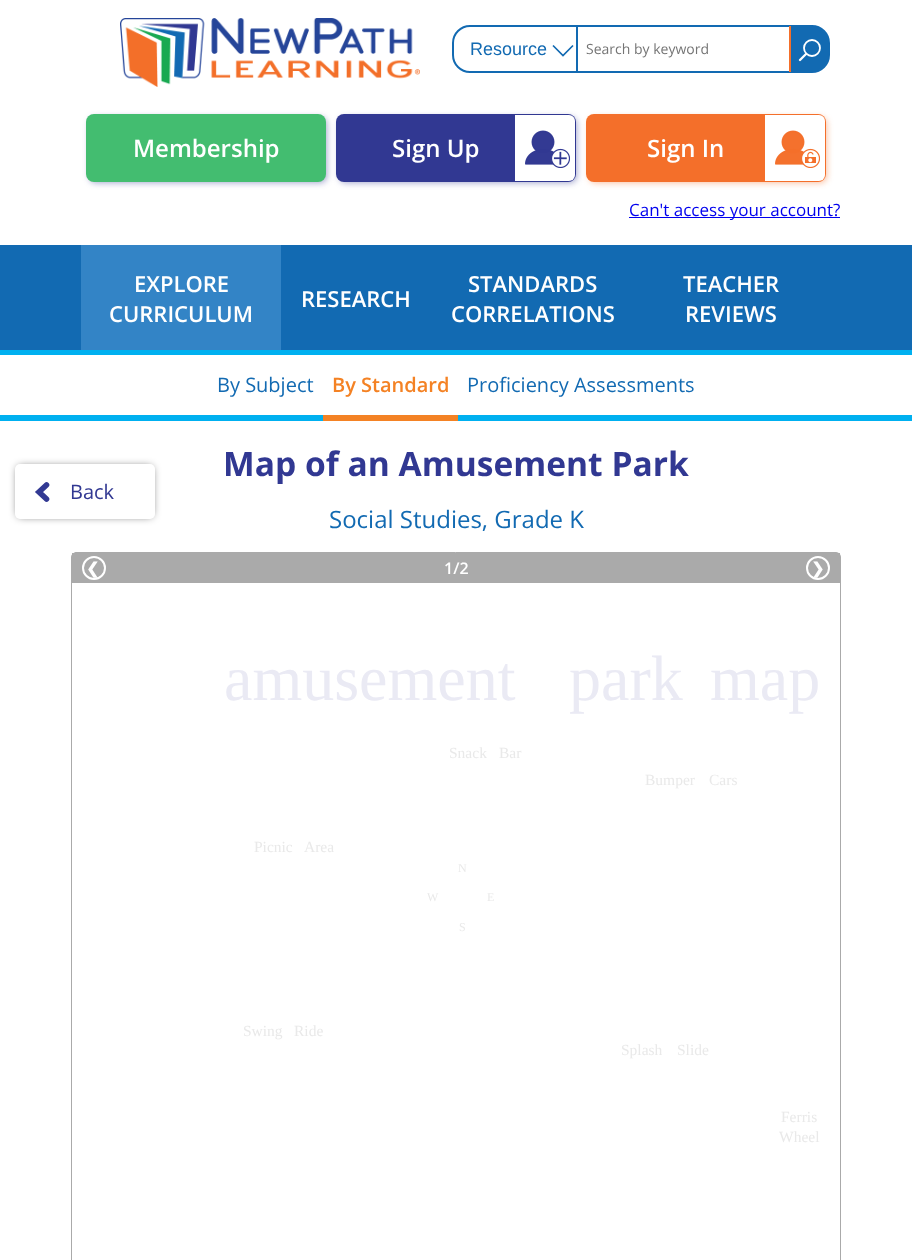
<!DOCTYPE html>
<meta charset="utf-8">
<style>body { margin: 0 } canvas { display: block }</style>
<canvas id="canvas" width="912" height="1260"></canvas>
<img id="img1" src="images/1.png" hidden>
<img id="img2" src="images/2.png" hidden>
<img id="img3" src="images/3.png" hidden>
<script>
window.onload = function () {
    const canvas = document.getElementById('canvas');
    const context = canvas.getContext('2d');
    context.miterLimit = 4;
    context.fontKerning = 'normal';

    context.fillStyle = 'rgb(255, 255, 255)';
    context.fillRect(0, 0, 912, 1260);
    context.drawImage(document.getElementById('img1'), 120, 18, 300, 69);
    context.beginPath();
    context.roundRect(453, 26, 376, 46, 17);
    context.strokeStyle = 'rgb(18, 106, 178)';
    context.lineWidth = 2;
    context.stroke();
    context.fillStyle = 'rgb(18, 106, 178)';
    context.fillRect(576, 27, 2, 44);
    context.beginPath();
    context.moveTo(553, 45.5);
    context.lineTo(563, 55.5);
    context.lineTo(573, 45.5);
    context.lineWidth = 1.7;
    context.stroke();
    context.beginPath();
    context.roundRect(789, 26, 40, 46, [0, 18, 18, 0]);
    context.fill();
    context.beginPath();
    context.arc(812, 48, 8, 0, 2 * Math.PI);
    context.strokeStyle = 'rgb(255, 255, 255)';
    context.lineWidth = 1.8;
    context.stroke();
    context.beginPath();
    context.moveTo(806, 54);
    context.lineTo(800, 60);
    context.lineWidth = 2.3;
    context.lineCap = 'round';
    context.stroke();
    context.fillStyle = 'rgb(244, 111, 42)';
    context.fillRect(789, 26, 2, 46);
    context.fillStyle = 'rgba(49, 56, 146, 0.44)';
    context.filter = 'blur(3px)';
    context.beginPath();
    context.roundRect(89, 117, 238, 66, 7);
    context.fill();
    context.filter = 'none';
    context.fillStyle = 'rgb(67, 189, 112)';
    context.beginPath();
    context.roundRect(86, 114, 240, 68, 8);
    context.fill();
    context.fillStyle = 'rgba(49, 56, 146, 0.44)';
    context.filter = 'blur(3px)';
    context.beginPath();
    context.roundRect(339, 117, 238, 66, 7);
    context.fill();
    context.filter = 'none';
    context.fillStyle = 'rgb(49, 56, 146)';
    context.beginPath();
    context.roundRect(336, 114, 240, 68, 8);
    context.fill();
    context.fillStyle = 'rgb(255, 255, 255)';
    context.beginPath();
    context.roundRect(515, 115, 60, 66, [0, 6, 6, 0]);
    context.fill();
    context.drawImage(document.getElementById('img2'), 525, 130, 45, 38);
    context.fillStyle = 'rgba(244, 111, 42, 0.44)';
    context.filter = 'blur(3px)';
    context.beginPath();
    context.roundRect(589, 117, 238, 66, 7);
    context.fill();
    context.filter = 'none';
    context.fillStyle = 'rgb(244, 111, 42)';
    context.beginPath();
    context.roundRect(586, 114, 240, 68, 8);
    context.fill();
    context.fillStyle = 'rgb(255, 255, 255)';
    context.beginPath();
    context.roundRect(765, 115, 60, 66, [0, 6, 6, 0]);
    context.fill();
    context.drawImage(document.getElementById('img3'), 775, 130, 45, 38);
    context.fillStyle = 'rgb(0, 0, 238)';
    context.fillRect(629, 217, 211, 1);
    context.fillStyle = 'rgb(18, 106, 178)';
    context.fillRect(0, 245, 912, 105);
    context.fillStyle = 'rgb(51, 132, 198)';
    context.fillRect(81, 245, 200, 105);
    context.fillStyle = 'rgb(0, 176, 240)';
    context.fillRect(0, 350, 912, 5);
    context.fillRect(0, 415, 912, 6);
    context.fillStyle = 'rgb(244, 130, 36)';
    context.fillRect(323, 415, 135, 6);
    context.fillStyle = 'rgba(0, 0, 0, 0.7)';
    context.filter = 'blur(4.5px)';
    context.beginPath();
    context.roundRect(18, 467, 134, 49, 2);
    context.fill();
    context.filter = 'none';
    context.fillStyle = 'rgb(255, 255, 255)';
    context.beginPath();
    context.roundRect(15, 464, 140, 55, 5);
    context.fill();
    context.beginPath();
    context.moveTo(46.5, 485);
    context.lineTo(39, 492);
    context.lineTo(46.5, 499);
    context.strokeStyle = 'rgb(50, 57, 147)';
    context.lineWidth = 5.6;
    context.stroke();
    context.beginPath();
    context.roundRect(71.5, 552.5, 769, 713, 4.5);
    context.strokeStyle = 'rgb(170, 170, 170)';
    context.lineWidth = 1;
    context.stroke();
    context.fillStyle = 'rgb(170, 170, 170)';
    context.fillRect(72, 553, 768, 30);
    context.beginPath();
    context.arc(94, 568, 11, 0, 2 * Math.PI);
    context.strokeStyle = 'rgb(255, 255, 255)';
    context.lineWidth = 2;
    context.stroke();
    context.beginPath();
    context.arc(818, 568, 11, 0, 2 * Math.PI);
    context.stroke();
    context.font = '18px Liberation Sans';
    context.fillStyle = 'rgb(18, 106, 178)';
    context.fillText('Resource', 470, 55);
    context.font = '14px Open Sans';
    context.fillStyle = 'rgb(117, 117, 117)';
    context.fillText('Search by keyword', 586, 54);
    context.font = '600 24px Open Sans';
    context.fillStyle = 'rgb(255, 255, 255)';
    context.fillText('Membership', 133, 157);
    context.fillText('Sign Up', 392, 157);
    context.fillText('Sign In', 647, 157);
    context.font = '17px Open Sans';
    context.fillStyle = 'rgb(0, 0, 238)';
    context.fillText('Can\'t access your account?', 629, 216);
    context.font = '600 22px Open Sans';
    context.fillStyle = 'rgb(255, 255, 255)';
    context.fillText('EXPLORE', 134, 292);
    context.fillText('CURRICULUM', 109, 322);
    context.fillText('RESEARCH', 301, 307);
    context.fillText('STANDARDS', 468, 292);
    context.fillText('CORRELATIONS', 451, 322);
    context.fillText('TEACHER', 683, 292);
    context.fillText('REVIEWS', 685, 322);
    context.font = '20px Open Sans';
    context.fillStyle = 'rgb(18, 106, 178)';
    context.fillText('By Subject', 217, 392);
    context.font = '600 20px Open Sans';
    context.fillStyle = 'rgb(244, 130, 36)';
    context.fillText('By Standard', 332, 392);
    context.font = '20px Open Sans';
    context.fillStyle = 'rgb(18, 106, 178)';
    context.fillText('Proficiency Assessments', 467, 392);
    context.font = 'bold 33.6px Open Sans';
    context.fillStyle = 'rgb(49, 56, 146)';
    context.fillText('Map of an Amusement Park', 223, 476);
    context.font = '20px Open Sans';
    context.fillText('Back', 70, 499);
    context.font = '24px Open Sans';
    context.fillStyle = 'rgb(18, 106, 178)';
    context.fillText('Social Studies, Grade K', 329, 528);
    context.font = 'bold 16px DejaVu Sans';
    context.fillStyle = 'rgb(255, 255, 255)';
    context.fillText('❮', 86, 574);
    context.font = '600 16px Open Sans';
    context.fillText('1/2', 444, 574);
    context.font = 'bold 16px DejaVu Sans';
    context.fillText('❯', 811, 574);
    context.font = '64px Liberation Serif';
    context.fillStyle = 'rgb(234, 234, 244)';
    context.fillText('amusement', 224, 700);
    context.fillText('park', 569, 700);
    context.fillText('map', 710, 700);
    context.font = '15.5px Liberation Serif';
    context.fillStyle = 'rgb(233, 233, 233)';
    context.fillText('Snack', 449, 758);
    context.fillText('Bar', 499, 758);
    context.fillText('Bumper', 645, 785);
    context.fillText('Cars', 709, 785);
    context.fillText('Picnic', 254, 852);
    context.fillText('Area', 304, 852);
    context.font = '12px Liberation Serif';
    context.fillText('N', 458, 872);
    context.fillText('W', 427, 901);
    context.fillText('E', 487, 901);
    context.fillText('S', 459, 931);
    context.font = '15.5px Liberation Serif';
    context.fillText('Swing', 243, 1036);
    context.fillText('Ride', 294, 1036);
    context.fillText('Splash', 621, 1055);
    context.fillText('Slide', 677, 1055);
    context.fillText('Ferris', 781, 1122);
    context.fillText('Wheel', 779, 1142);
};
</script>
